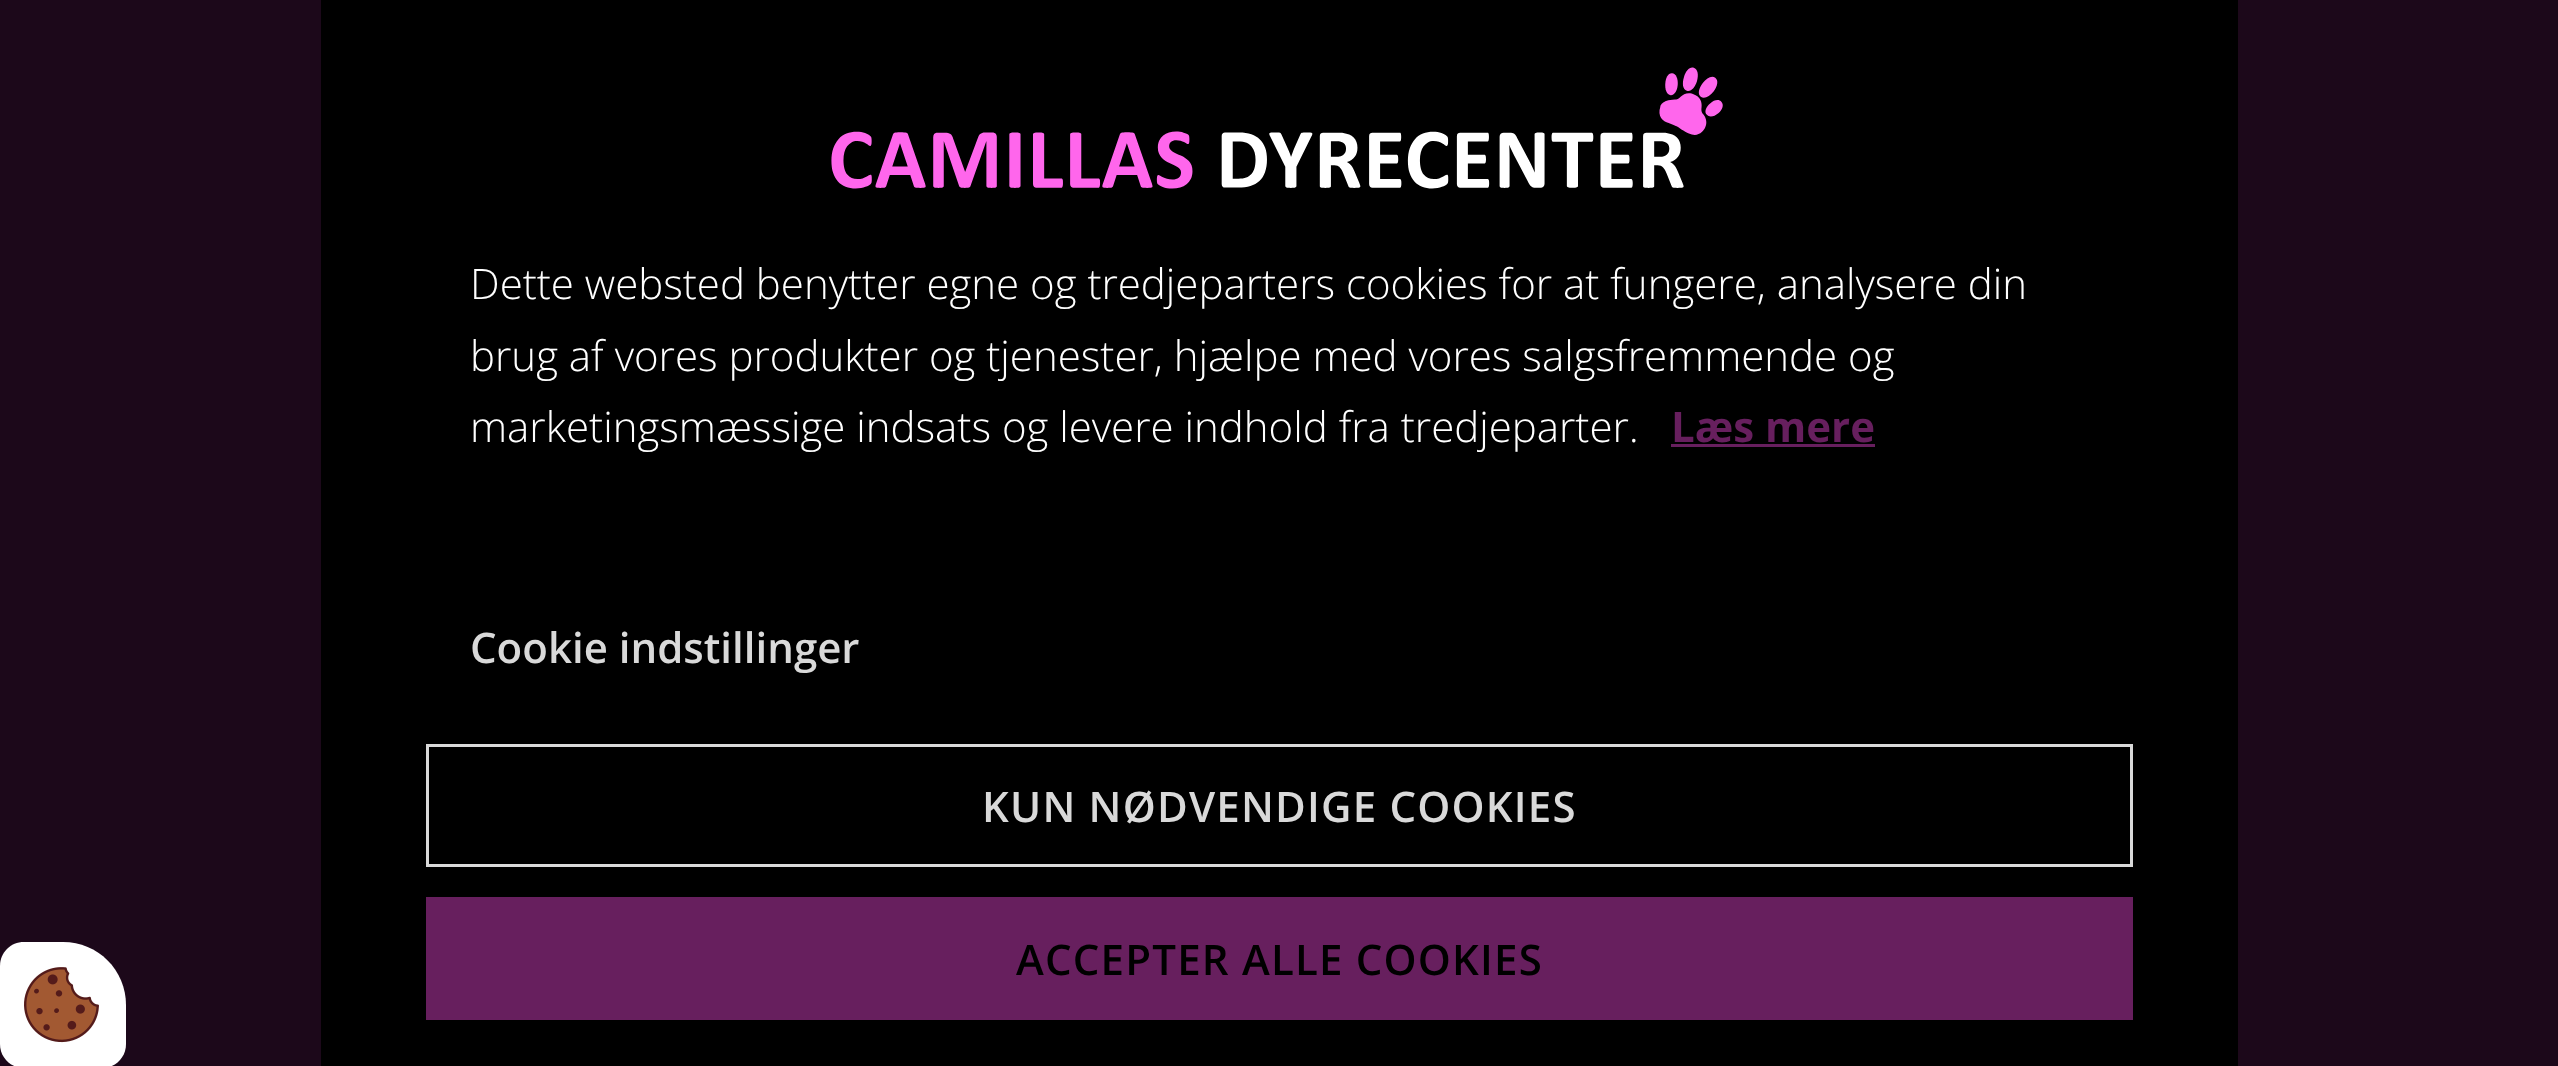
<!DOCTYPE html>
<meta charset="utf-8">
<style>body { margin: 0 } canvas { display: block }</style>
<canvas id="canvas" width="2558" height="1066"></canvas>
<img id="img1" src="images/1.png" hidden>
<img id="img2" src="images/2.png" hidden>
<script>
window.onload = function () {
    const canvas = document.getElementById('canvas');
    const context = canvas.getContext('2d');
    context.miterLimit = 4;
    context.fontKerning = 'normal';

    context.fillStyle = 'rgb(28, 8, 26)';
    context.fillRect(0, 0, 2558, 1066);
    context.fillStyle = 'rgb(0, 0, 0)';
    context.fillRect(321, 0, 1917, 1066);
    context.drawImage(document.getElementById('img1'), 831, 67, 892, 122);
    context.fillStyle = 'rgb(103, 31, 94)';
    context.fillRect(1671, 444, 204, 3);
    context.strokeStyle = 'rgb(217, 217, 217)';
    context.lineWidth = 3;
    context.strokeRect(427.5, 745.5, 1704, 120);
    context.fillRect(426, 897, 1707, 123);
    context.fillStyle = 'rgb(255, 255, 255)';
    context.beginPath();
    context.moveTo(24, 942);
    context.lineTo(63, 942);
    context.bezierCurveTo(98, 942, 126, 970, 126, 1005);
    context.lineTo(126, 1044);
    context.bezierCurveTo(126, 1057.5, 115.5, 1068, 102, 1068);
    context.lineTo(24, 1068);
    context.bezierCurveTo(10.5, 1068, 0, 1057.5, 0, 1044);
    context.lineTo(0, 966);
    context.bezierCurveTo(0, 952.5, 10.5, 942, 24, 942);
    context.closePath();
    context.fill();
    context.drawImage(document.getElementById('img2'), 24, 967, 75, 76);
    context.font = '300 42px Open Sans';
    context.fillText('Dette websted benytter egne og tredjeparters cookies for at fungere, analysere din', 470, 299);
    context.fillText('brug af vores produkter og tjenester, hjælpe med vores salgsfremmende og', 470, 371);
    context.fillText('marketingsmæssige indsats og levere indhold fra tredjeparter.', 470, 442);
    context.font = 'bold 42px Open Sans';
    context.fillStyle = 'rgb(103, 31, 94)';
    context.fillText('Læs mere', 1671, 442);
    context.font = '600 42px Open Sans';
    context.fillStyle = 'rgb(217, 217, 217)';
    context.fillText('Cookie indstillinger', 470, 663);
    context.letterSpacing = '1.2px';
    context.fillText('KUN NØDVENDIGE COOKIES', 982, 822);
    context.fillStyle = 'rgb(0, 0, 0)';
    context.fillText('ACCEPTER ALLE COOKIES', 1016, 975);
};
</script>
